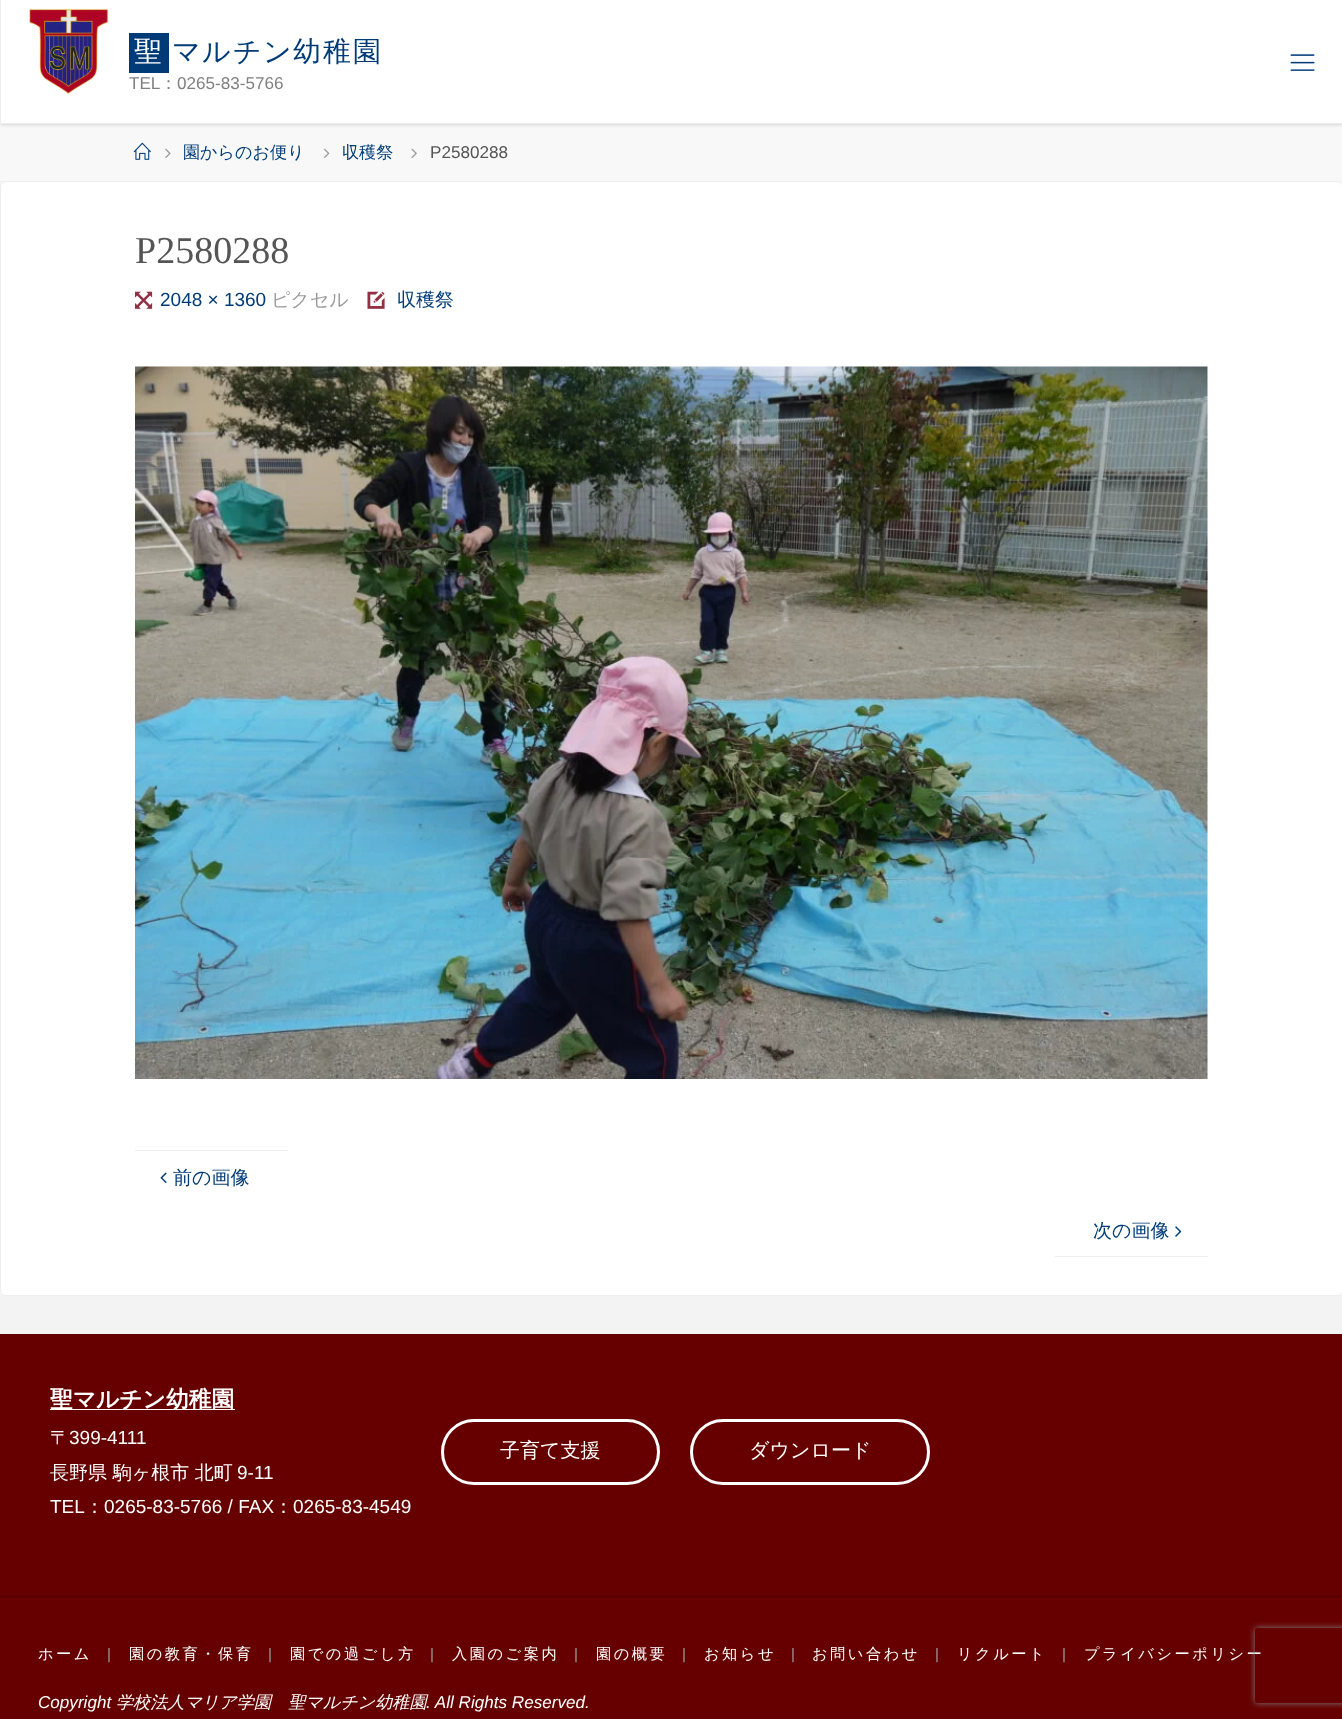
(async () => {
const canvas = document.querySelector("canvas")
canvas.width = 1342
canvas.height = 1719
const c = canvas.getContext("2d")
c.miterLimit = 4
c.fontKerning = "normal"
function T(s,x,y){c.fillText(s,x,y)}
function R(x,y,w,h){c.fillRect(x,y,w,h)}
function Q(x,y,w,h,r){c.beginPath();c.roundRect(x,y,w,h,r);c.fill()}
async function I(src,x,y,w,h){const img=new Image();img.src=src;await img.decode();c.drawImage(img,x,y,w,h)}
let path
c.fillStyle="#f3f3f3"
R(0,0,1342,1719)
c.fillStyle="#f8f8f8"
R(0,124,1342,57)
c.fillStyle="#00000033"
c.filter="blur(2px)"
c.beginPath()
c.rect(0,-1,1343,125)
c.fill()
c.filter="none"
c.fillStyle="#fff"
c.beginPath()
c.rect(.5,-.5,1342,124)
c.fill()
c.strokeStyle="#ededed"
c.stroke()
await I("1.png",29,9,80,86)
c.fillStyle="#003b78"
R(129,33,40,40)
c.font="500 28px WenQuanYi Zen Hei"
c.fillStyle="#fff"
T("聖",134,61)
c.fillStyle="#003b78"
T("マ",172,61)
T("ル",202,61)
T("チ",233,61)
T("ン",263,61)
T("幼",293,61)
T("稚",323,61)
T("園",353,61)
c.font="17.1px Liberation Sans"
c.fillStyle="#808080"
T("TEL",129,89)
c.font="500 17.1px WenQuanYi Zen Hei"
T("：",160,89)
c.font="17.1px Liberation Sans"
T("0265-83-5766",177,89)
await I("2.png",1290,54,25,17)
await I("3.png",133,142,18,18)
await I("4.png",165,148,6,10)
c.font="500 17.1px WenQuanYi Zen Hei"
c.fillStyle="#003b78"
T("園からのお便り",183,158)
await I("5.png",324,148,6,11)
T("収穫祭",342,158)
await I("6.png",411,148,6,10)
c.font="17.1px Liberation Sans"
c.fillStyle="#555"
T("P2580288",430,158)
c.fillStyle="#fff"
Q(0,181,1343,1115,6)
c.beginPath()
c.roundRect(.5,181.5,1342,1114,5.5)
c.strokeStyle="#00000012"
c.stroke()
c.font="38px Liberation Serif"
c.fillStyle="#555"
T("P2580288",135,263)
await I("7.png",135,291,18,18)
c.font="19px Liberation Sans"
c.fillStyle="#003b78"
T("2048 × 1360",160,306)
c.font="500 19px WenQuanYi Zen Hei"
c.fillStyle="#9a9a9a"
T("ピクセル",271,306)
await I("8.png",367,291,18,18)
c.fillStyle="#003b78"
T("収穫祭",397,306)
await I("9.png",135,366,1073,713)
c.fillStyle="#eee"
R(135,1150,153,1)
await I("10.png",160,1172,7,11)
c.fillStyle="#003b78"
T("前の画像",173,1184)
T("次の画像",1093,1237)
await I("11.png",1175,1226,7,11)
c.fillStyle="#eee"
R(1055,1256,153,1)
c.fillStyle="#600"
R(0,1335,1342,261)
c.fillStyle="#5f0000"
R(0,1334,1342,1)
c.fillStyle="#fff"
R(50,1409,185,1)
c.font="bold 22.75px WenQuanYi Zen Hei"
T("聖マルチン幼稚園",50,1407)
c.font="500 19px WenQuanYi Zen Hei"
T("〒",50,1444)
c.font="19px Liberation Sans"
T("399-4111",69,1444)
c.font="500 19px WenQuanYi Zen Hei"
T("長野県 駒ヶ根市 北町",50,1479)
c.font="19px Liberation Sans"
T("9-11",237,1479)
T("TEL",50,1513)
c.font="500 19px WenQuanYi Zen Hei"
T("：",85,1513)
c.font="19px Liberation Sans"
T("0265-83-5766 / FAX",104,1513)
c.font="500 19px WenQuanYi Zen Hei"
T("：",274,1513)
c.font="19px Liberation Sans"
T("0265-83-4549",293,1513)
c.beginPath()
c.roundRect(442.5,1420.5,216,63,31.5)
c.strokeStyle="#fff"
c.lineWidth=3
c.stroke()
c.font="500 20px WenQuanYi Zen Hei"
T("子育て支援",500,1457)
c.beginPath()
c.roundRect(691.5,1420.5,237,63,31.5)
c.stroke()
T("ダウンロード",749,1457)
c.fillStyle="#600"
R(0,1597,1342,122)
c.fillStyle="#520000"
R(0,1596,1342,1)
c.letterSpacing="2.5px"
c.font="500 15.25px WenQuanYi Zen Hei"
c.fillStyle="#fff"
T("ホーム",38,1659)
c.font="15.25px Liberation Sans"
c.fillStyle="#9a9a9a"
T("|",107,1659)
c.font="500 15.25px WenQuanYi Zen Hei"
c.fillStyle="#fff"
T("園の教育・保育",129,1659)
c.font="15.25px Liberation Sans"
c.fillStyle="#9a9a9a"
T("|",268,1659)
c.font="500 15.25px WenQuanYi Zen Hei"
c.fillStyle="#fff"
T("園での過ごし方",290,1659)
c.font="15.25px Liberation Sans"
c.fillStyle="#9a9a9a"
T("|",430,1659)
c.font="500 15.25px WenQuanYi Zen Hei"
c.fillStyle="#fff"
T("入園のご案内",452,1659)
c.font="15.25px Liberation Sans"
c.fillStyle="#9a9a9a"
T("|",574,1659)
c.font="500 15.25px WenQuanYi Zen Hei"
c.fillStyle="#fff"
T("園の概要",596,1659)
c.font="15.25px Liberation Sans"
c.fillStyle="#9a9a9a"
T("|",682,1659)
c.font="500 15.25px WenQuanYi Zen Hei"
c.fillStyle="#fff"
T("お知らせ",704,1659)
c.font="15.25px Liberation Sans"
c.fillStyle="#9a9a9a"
T("|",791,1659)
c.font="500 15.25px WenQuanYi Zen Hei"
c.fillStyle="#fff"
T("お問い合わせ",812,1659)
c.font="15.25px Liberation Sans"
c.fillStyle="#9a9a9a"
T("|",935,1659)
c.font="500 15.25px WenQuanYi Zen Hei"
c.fillStyle="#fff"
T("リクルート",957,1659)
c.font="15.25px Liberation Sans"
c.fillStyle="#9a9a9a"
T("|",1062,1659)
c.font="500 15.25px WenQuanYi Zen Hei"
c.fillStyle="#fff"
T("プライバシーポリシー",1084,1659)
c.letterSpacing="0px"
c.font="italic 17.1px Liberation Sans"
T("Copyright",38,1708)
c.font="italic 500 17.1px WenQuanYi Zen Hei"
T("学校法人マリア学園　聖マルチン幼稚園",116,1708)
c.font="italic 17.1px Liberation Sans"
T(". All Rights Reserved.",426,1708)
c.save()
path = new Path2D("M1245 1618h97v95h-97zm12.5 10h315c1.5 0 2.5 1 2.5 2.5v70c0 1.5-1 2.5-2.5 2.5h-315c-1.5 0-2.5-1-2.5-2.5v-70c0-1.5 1-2.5 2.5-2.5z")
c.clip(path,"evenodd")
c.fillStyle="#808080"
c.filter="blur(3px)"
c.beginPath()
c.roundRect(1255,1628,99,75,2.5)
c.fill()
c.filter="none"
c.restore()
})()
